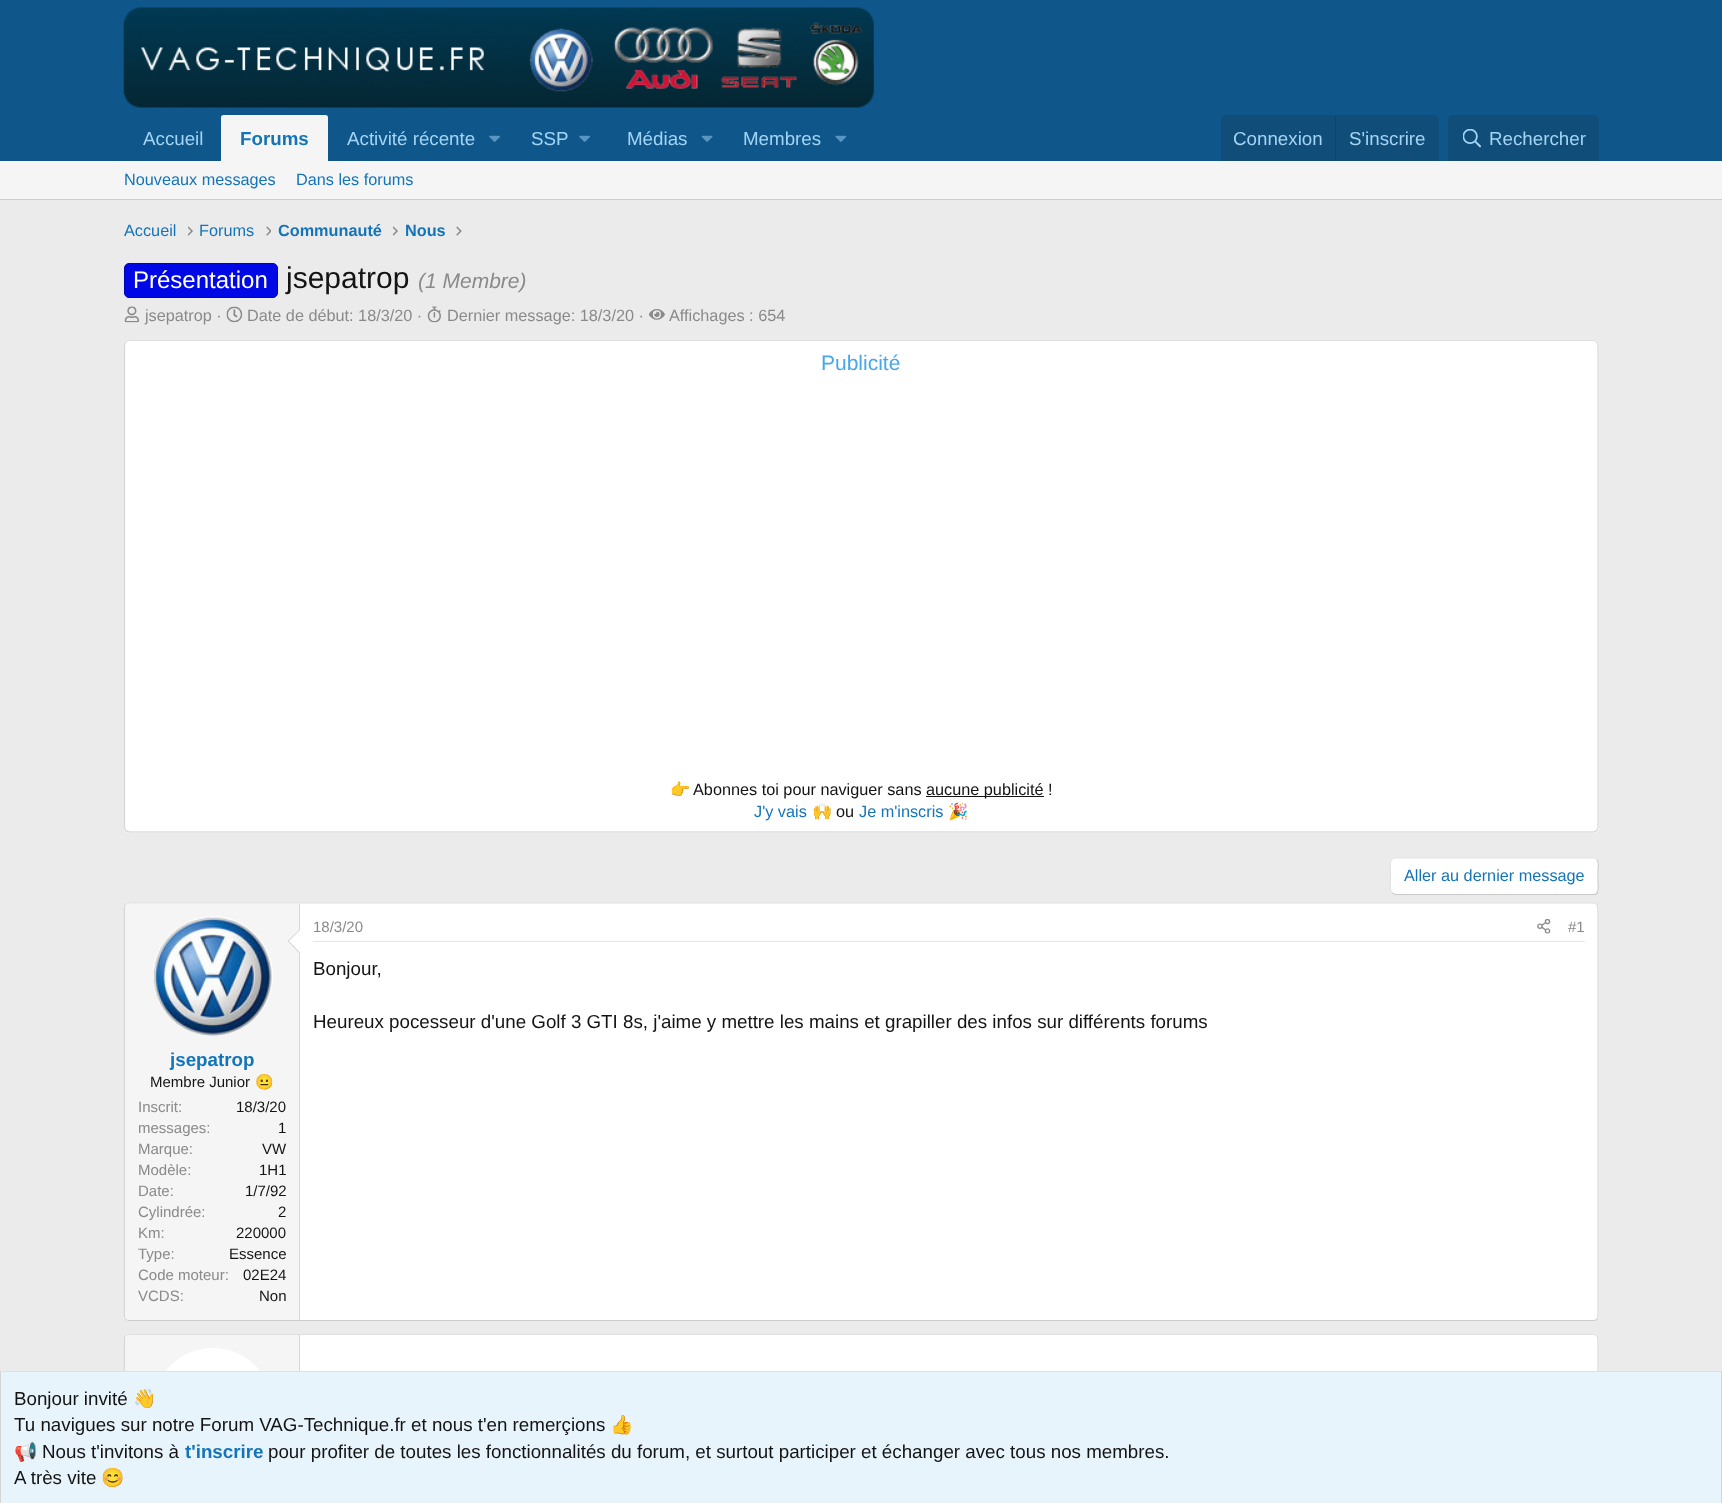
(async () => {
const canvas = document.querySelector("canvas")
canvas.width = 1722
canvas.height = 1503
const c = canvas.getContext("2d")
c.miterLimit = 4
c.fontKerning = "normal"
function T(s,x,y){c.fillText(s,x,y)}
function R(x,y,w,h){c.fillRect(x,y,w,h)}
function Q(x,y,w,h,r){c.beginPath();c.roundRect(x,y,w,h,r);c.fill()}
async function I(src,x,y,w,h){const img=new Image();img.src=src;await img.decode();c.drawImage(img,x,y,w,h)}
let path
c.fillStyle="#ebebeb"
R(0,0,1722,1503)
c.fillStyle="#0f578a"
R(0,0,1722,161)
await I("1.png",123,7,751,101)
c.font="18.75px Liberation Sans"
c.fillStyle="#a3d4f5"
T("Accueil",143,145)
c.fillStyle="#f5f5f5"
c.beginPath()
c.roundRect(221,115,107,46,[2.5,2.5,0,0])
c.fill()
c.font="bold 18.75px Liberation Sans"
c.fillStyle="#1474b8"
T("Forums",240,145)
c.font="18.75px Liberation Sans"
c.fillStyle="#a3d4f5"
T("Activité récente",347,145)
await I("2.png",489,135,11,7)
T("SSP",531,145)
await I("2.png",579,135,11,7)
T("Médias",627,145)
await I("3.png",701,135,12,7)
T("Membres",743,145)
await I("4.png",835,135,12,7)
c.fillStyle="#104d78"
c.beginPath()
c.roundRect(1221,115,218,46,[5,5,0,0])
c.fill()
c.fillStyle="#a3d4f5"
T("Connexion",1233,145)
c.fillStyle="#114469"
R(1335,115,1,46)
c.fillStyle="#a3d4f5"
T("S'inscrire",1349,145)
c.fillStyle="#104d78"
c.beginPath()
c.roundRect(1448,115,151,46,[5,5,0,0])
c.fill()
await I("5.png",1463,129,18,19)
c.fillStyle="#a3d4f5"
T("Rechercher",1489,145)
c.fillStyle="#f5f5f5"
R(0,161,1722,38)
c.fillStyle="#ccc"
R(0,199,1722,1)
c.font="16.25px Liberation Sans"
c.fillStyle="#1474b8"
T("Nouveaux messages",124,185)
T("Dans les forums",296,185)
T("Accueil",124,236)
await I("6.png",188,226,5,10)
T("Forums",199,236)
await I("7.png",266,226,5,10)
c.font="bold 16.25px Liberation Sans"
T("Communauté",278,236)
await I("6.png",393,226,5,10)
T("Nous",405,236)
await I("8.png",456,226,6,10)
c.fillStyle="#0008e6"
c.beginPath()
c.roundRect(124.5,263.5,153,34,4.5)
c.fill()
c.strokeStyle="#0006b3"
c.stroke()
c.font="24px Liberation Sans"
c.fillStyle="#fff"
T("Présentation",133,288)
c.font="30px Liberation Sans"
c.fillStyle="#141414"
T("jsepatrop",286,288)
c.font="italic 21px Liberation Sans"
c.fillStyle="#8a8a8a"
T("(1 Membre)",418,288)
await I("9.png",124,306,15,17)
c.font="16.25px Liberation Sans"
T("jsepatrop ·",145,321)
await I("10.png",226,306,17,17)
T("Date de début: 18/3/20 ·",247,321)
await I("11.png",427,306,14,17)
T("Dernier message: 18/3/20 ·",447,321)
await I("12.png",649,309,16,11)
T("Affichages : 654",669,321)
c.fillStyle="#fff"
Q(124,340,1475,493,5)
path = new Path2D("M125.5 342l3.5-1.5h1465l3 1.5")
c.strokeStyle="#e0e0e0"
c.lineWidth=1.2
c.stroke(path)
path = new Path2D("M1597 342l1 3v482.5l-1 3")
c.strokeStyle="#d6d6d6"
c.stroke(path)
path = new Path2D("M1597 830.5l-3 1.5h-1465l-3.5-1.5")
c.strokeStyle="#ccc"
c.stroke(path)
path = new Path2D("M125.5 830.5l-1-3v-482.5l1-3")
c.strokeStyle="#d6d6d6"
c.stroke(path)
c.font="21px Liberation Sans"
c.fillStyle="#47a7eb"
T("Publicité",821,370)
c.font="16.25px Noto Color Emoji"
c.fillStyle="#141414"
T("👉",670,795)
c.font="16.25px Liberation Sans"
T("Abonnes toi pour naviguer sans",693,795)
R(926,796,118,1)
T("aucune publicité !",926,795)
c.fillStyle="#1474b8"
T("J'y vais",754,817)
c.font="16.25px Noto Color Emoji"
T("🙌",812,817)
c.font="16.25px Liberation Sans"
c.fillStyle="#141414"
T("ou",836,817)
c.fillStyle="#1474b8"
T("Je m'inscris",859,817)
c.font="16.25px Noto Color Emoji"
T("🎉",948,817)
c.fillStyle="#fff"
Q(1390,858,209,37,5)
path = new Path2D("M1597 859.5c2.5 2.5 1 9 1 12v9.5c0 3 2 13.5-4 13.5h-199l-3-1.5")
c.strokeStyle="#c9c9c9"
c.stroke(path)
path = new Path2D("M1392 893c-3-2.5-1.5-9-1.5-12v-9.5c0-3-2-13.5 4.5-13.5h199l3 1.5")
c.strokeStyle="#e3e3e3"
c.stroke(path)
c.font="16.25px Liberation Sans"
c.fillStyle="#1474b8"
T("Aller au dernier message",1404,881)
c.fillStyle="#fff"
Q(124,903,1475,418,5)
path = new Path2D("M125.5 904.5l3.5-1.5h1465l3 1.5")
c.strokeStyle="#e0e0e0"
c.stroke(path)
path = new Path2D("M1597 904.5l1 3v408.5l-1 3.5")
c.strokeStyle="#d6d6d6"
c.stroke(path)
path = new Path2D("M1597 1319.5l-3 1h-1465l-3.5-1")
c.strokeStyle="#ccc"
c.stroke(path)
path = new Path2D("M125.5 1319.5l-1-3.5v-408.5l1-3")
c.strokeStyle="#d6d6d6"
c.stroke(path)
c.fillStyle="#e6e6e6"
R(313,941,1272,1)
c.font="15px Liberation Sans"
c.fillStyle="#8a8a8a"
T("18/3/20",313,932)
await I("13.png",1537,919,14,15)
T("#1",1568,932)
c.font="18.75px Liberation Sans"
c.fillStyle="#141414"
T("Bonjour,",313,975)
T("Heureux pocesseur d'une Golf 3 GTI 8s, j'aime y mettre les mains et grapiller des infos sur différents forums",313,1028)
c.fillStyle="#f5f5f5"
c.beginPath()
c.roundRect(125,904,175,416,[4,0,0,4])
c.fill()
c.fillStyle="#d6d6d6"
R(299,904,1,416)
c.fillStyle="#fff"
c.beginPath()
c.arc(213,976,60,0,7)
c.fill()
await I("14.png",153,916,120,120)
c.fillStyle="#d6d6d6"
path = new Path2D("M300 929v25l-12.5-13z")
c.fill(path)
c.fillStyle="#fff"
path = new Path2D("M300 930v22.5l-11-11.5z")
c.fill(path)
c.font="bold 18.75px Liberation Sans"
c.fillStyle="#1474b8"
T("jsepatrop",170,1066)
c.font="15px Liberation Sans"
c.fillStyle="#141414"
T("Membre Junior",150,1087)
c.font="15px Noto Color Emoji"
T("😐",255,1087)
c.font="15px Liberation Sans"
c.fillStyle="#8a8a8a"
T("Inscrit:",138,1112)
c.fillStyle="#141414"
T("18/3/20",236,1112)
c.fillStyle="#8a8a8a"
T("messages:",138,1133)
c.fillStyle="#141414"
T("1",278,1133)
c.fillStyle="#8a8a8a"
T("Marque:",138,1154)
c.fillStyle="#141414"
T("VW",262,1154)
c.fillStyle="#8a8a8a"
T("Modèle:",138,1175)
c.fillStyle="#141414"
T("1H1",259,1175)
c.fillStyle="#8a8a8a"
T("Date:",138,1196)
c.fillStyle="#141414"
T("1/7/92",245,1196)
c.fillStyle="#8a8a8a"
T("Cylindrée:",138,1217)
c.fillStyle="#141414"
T("2",278,1217)
c.fillStyle="#8a8a8a"
T("Km:",138,1238)
c.fillStyle="#141414"
T("220000",236,1238)
c.fillStyle="#8a8a8a"
T("Type:",138,1259)
c.fillStyle="#141414"
T("Essence",229,1259)
c.fillStyle="#8a8a8a"
T("Code moteur:",138,1280)
c.fillStyle="#141414"
T("02E24",243,1280)
c.fillStyle="#8a8a8a"
T("VCDS:",138,1301)
c.fillStyle="#141414"
T("Non",259,1301)
c.fillStyle="#fff"
Q(124,1334,1475,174,5)
path = new Path2D("M125.5 1335.5l3.5-1h1465l3 1")
c.strokeStyle="#e0e0e0"
c.stroke(path)
path = new Path2D("M1597 1335.5c.5 1 1 2 1 3.5v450c0 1-.5 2-1 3")
c.strokeStyle="#d6d6d6"
c.stroke(path)
path = new Path2D("M125.5 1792c-.5-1-1-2-1-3v-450c0-1.5 .5-2.5 1-3.5")
c.stroke(path)
c.fillStyle="#f5f5f5"
path = new Path2D("M129 1335h171v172h-171c-2 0-4-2-4-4v-164c0-2 2-4 4-4z")
c.fill(path)
c.fillStyle="#d6d6d6"
R(299,1335,1,36)
c.fillStyle="#fff"
c.beginPath()
c.arc(213,1408,60,0,7)
c.fill()
c.fillStyle="#e8f4fc"
R(1,1372,1720,131)
c.fillStyle="#e0e0e0"
R(0,1371,1722,1)
c.fillStyle="#d6d6d6"
R(1721,1371,1,132)
R(0,1371,1,132)
c.font="18.75px Liberation Sans"
c.fillStyle="#141414"
T("Bonjour invité",14,1405)
c.font="18.75px Noto Color Emoji"
T("👋",133,1405)
c.font="18.75px Liberation Sans"
T("Tu navigues sur notre Forum VAG-Technique.fr et nous t'en remerçions",14,1431)
c.font="18.75px Noto Color Emoji"
T("👍",610,1431)
T("📢",14,1458)
c.font="18.75px Liberation Sans"
T("Nous t'invitons à",42,1458)
c.font="bold 18.75px Liberation Sans"
c.fillStyle="#1474b8"
T("t'inscrire",185,1458)
c.font="18.75px Liberation Sans"
c.fillStyle="#141414"
T("pour profiter de toutes les fonctionnalités du forum, et surtout participer et échanger avec tous nos membres.",268,1458)
T("A très vite",14,1484)
c.font="18.75px Noto Color Emoji"
T("😊",101,1484)
})()
